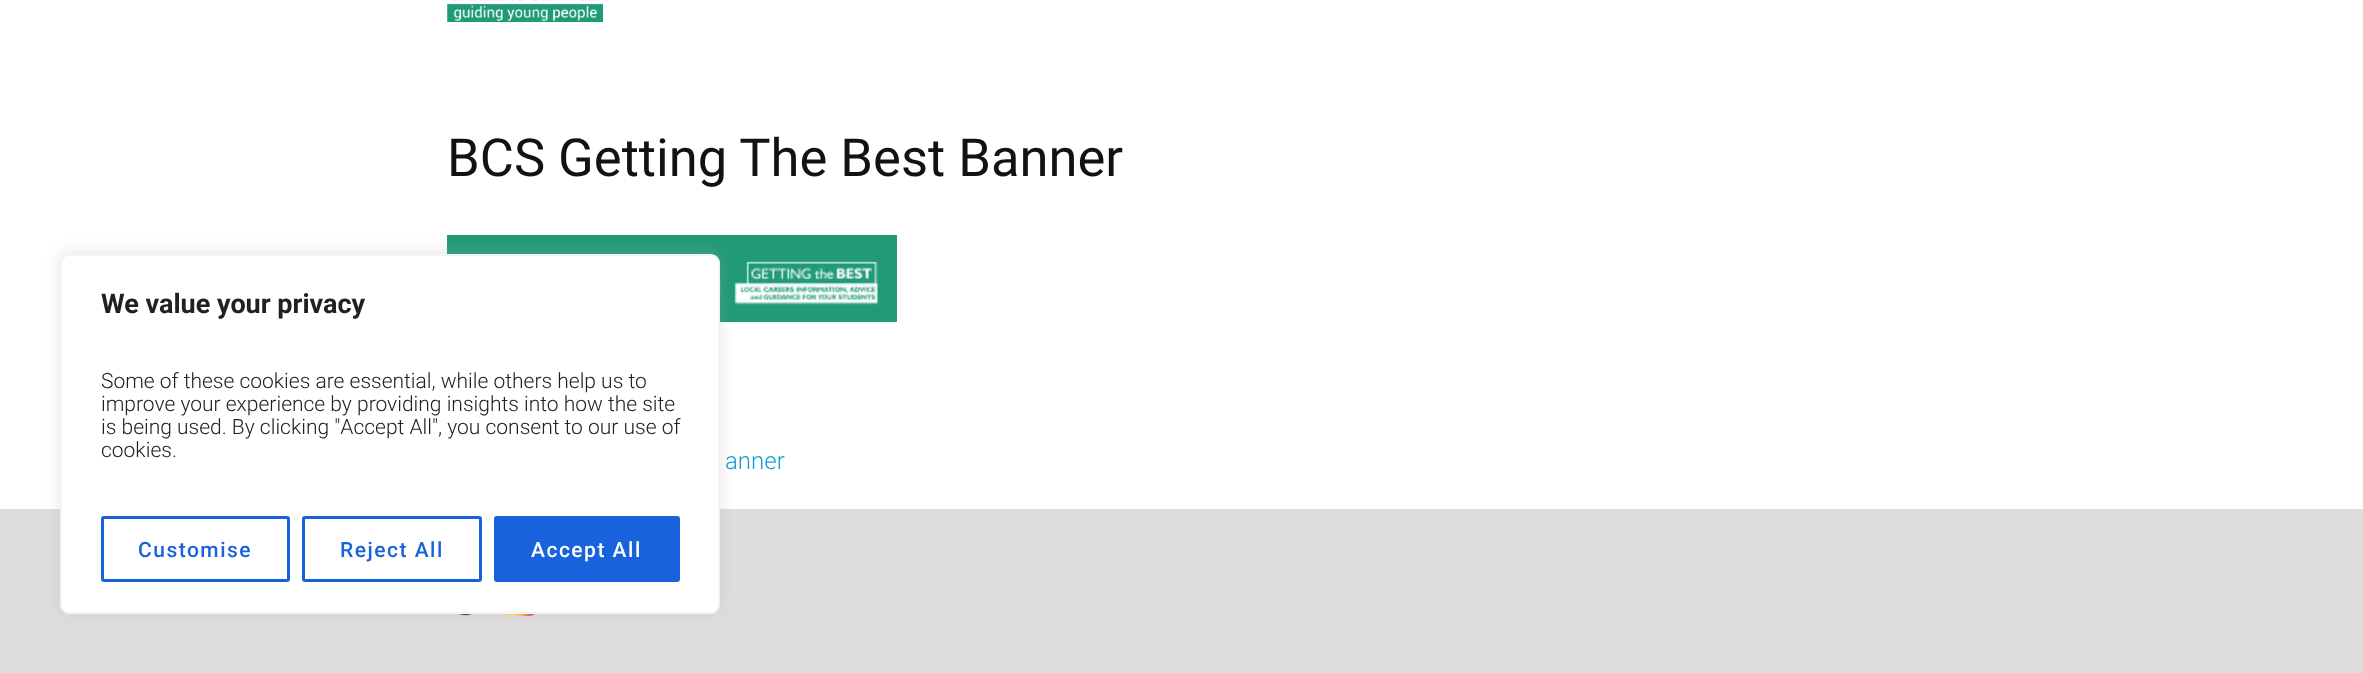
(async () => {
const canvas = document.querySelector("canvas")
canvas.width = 2363
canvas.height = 673
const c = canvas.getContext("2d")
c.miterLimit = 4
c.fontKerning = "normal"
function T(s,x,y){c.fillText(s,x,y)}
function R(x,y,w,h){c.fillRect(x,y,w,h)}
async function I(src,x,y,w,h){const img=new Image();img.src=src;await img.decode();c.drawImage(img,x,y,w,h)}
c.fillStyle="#fff"
R(0,0,2363,673)
await I("2.png",447,235,450,87)
c.fillStyle="#ddd"
R(0,509,2363,164)
c.fillStyle="#e0e0e0"
R(564,614,2,15)
await I("3.png",458,614,14,2)
await I("4.png",503,614,32,2)
c.fillStyle="#acabab4d"
c.filter="blur(7.5px)"
c.beginPath()
c.roundRect(60,252,660,360,9)
c.fill()
c.filter="none"
c.fillStyle="#fff"
c.beginPath()
c.roundRect(61,255,658,358,8)
c.fill()
c.strokeStyle="#f4f4f4"
c.lineWidth=2
c.stroke()
c.font="bold 27px Roboto"
c.fillStyle="#212121"
T("We value your privacy",101,313)
c.font="300 21px Roboto"
T("Some of these cookies are essential, while others help us to",101,388)
T("improve your experience by providing insights into how the site",101,411)
T("is being used. By clicking \"Accept All\", you consent to our use of",101,434)
T("cookies.",101,457)
c.beginPath()
c.roundRect(102.5,517.5,186,63,1.5)
c.strokeStyle="#1863dc"
c.lineWidth=3
c.stroke()
c.letterSpacing="1.5px"
c.font="500 21px Roboto"
c.fillStyle="#1863dc"
T("Customise",138,557)
c.beginPath()
c.roundRect(303.5,517.5,177,63,1.5)
c.stroke()
T("Reject All",340,557)
c.beginPath()
c.roundRect(495.5,517.5,183,63,1.5)
c.fill()
c.stroke()
c.fillStyle="#fff"
T("Accept All",531,557)
await I("1.png",447,0,156,22)
c.letterSpacing="0px"
c.font="52.5px Roboto"
c.fillStyle="#121212"
T("BCS Getting The Best Banner",447,176)
c.font="300 24px Roboto"
c.fillStyle="#199cd8"
T("anner",725,469)
})()
